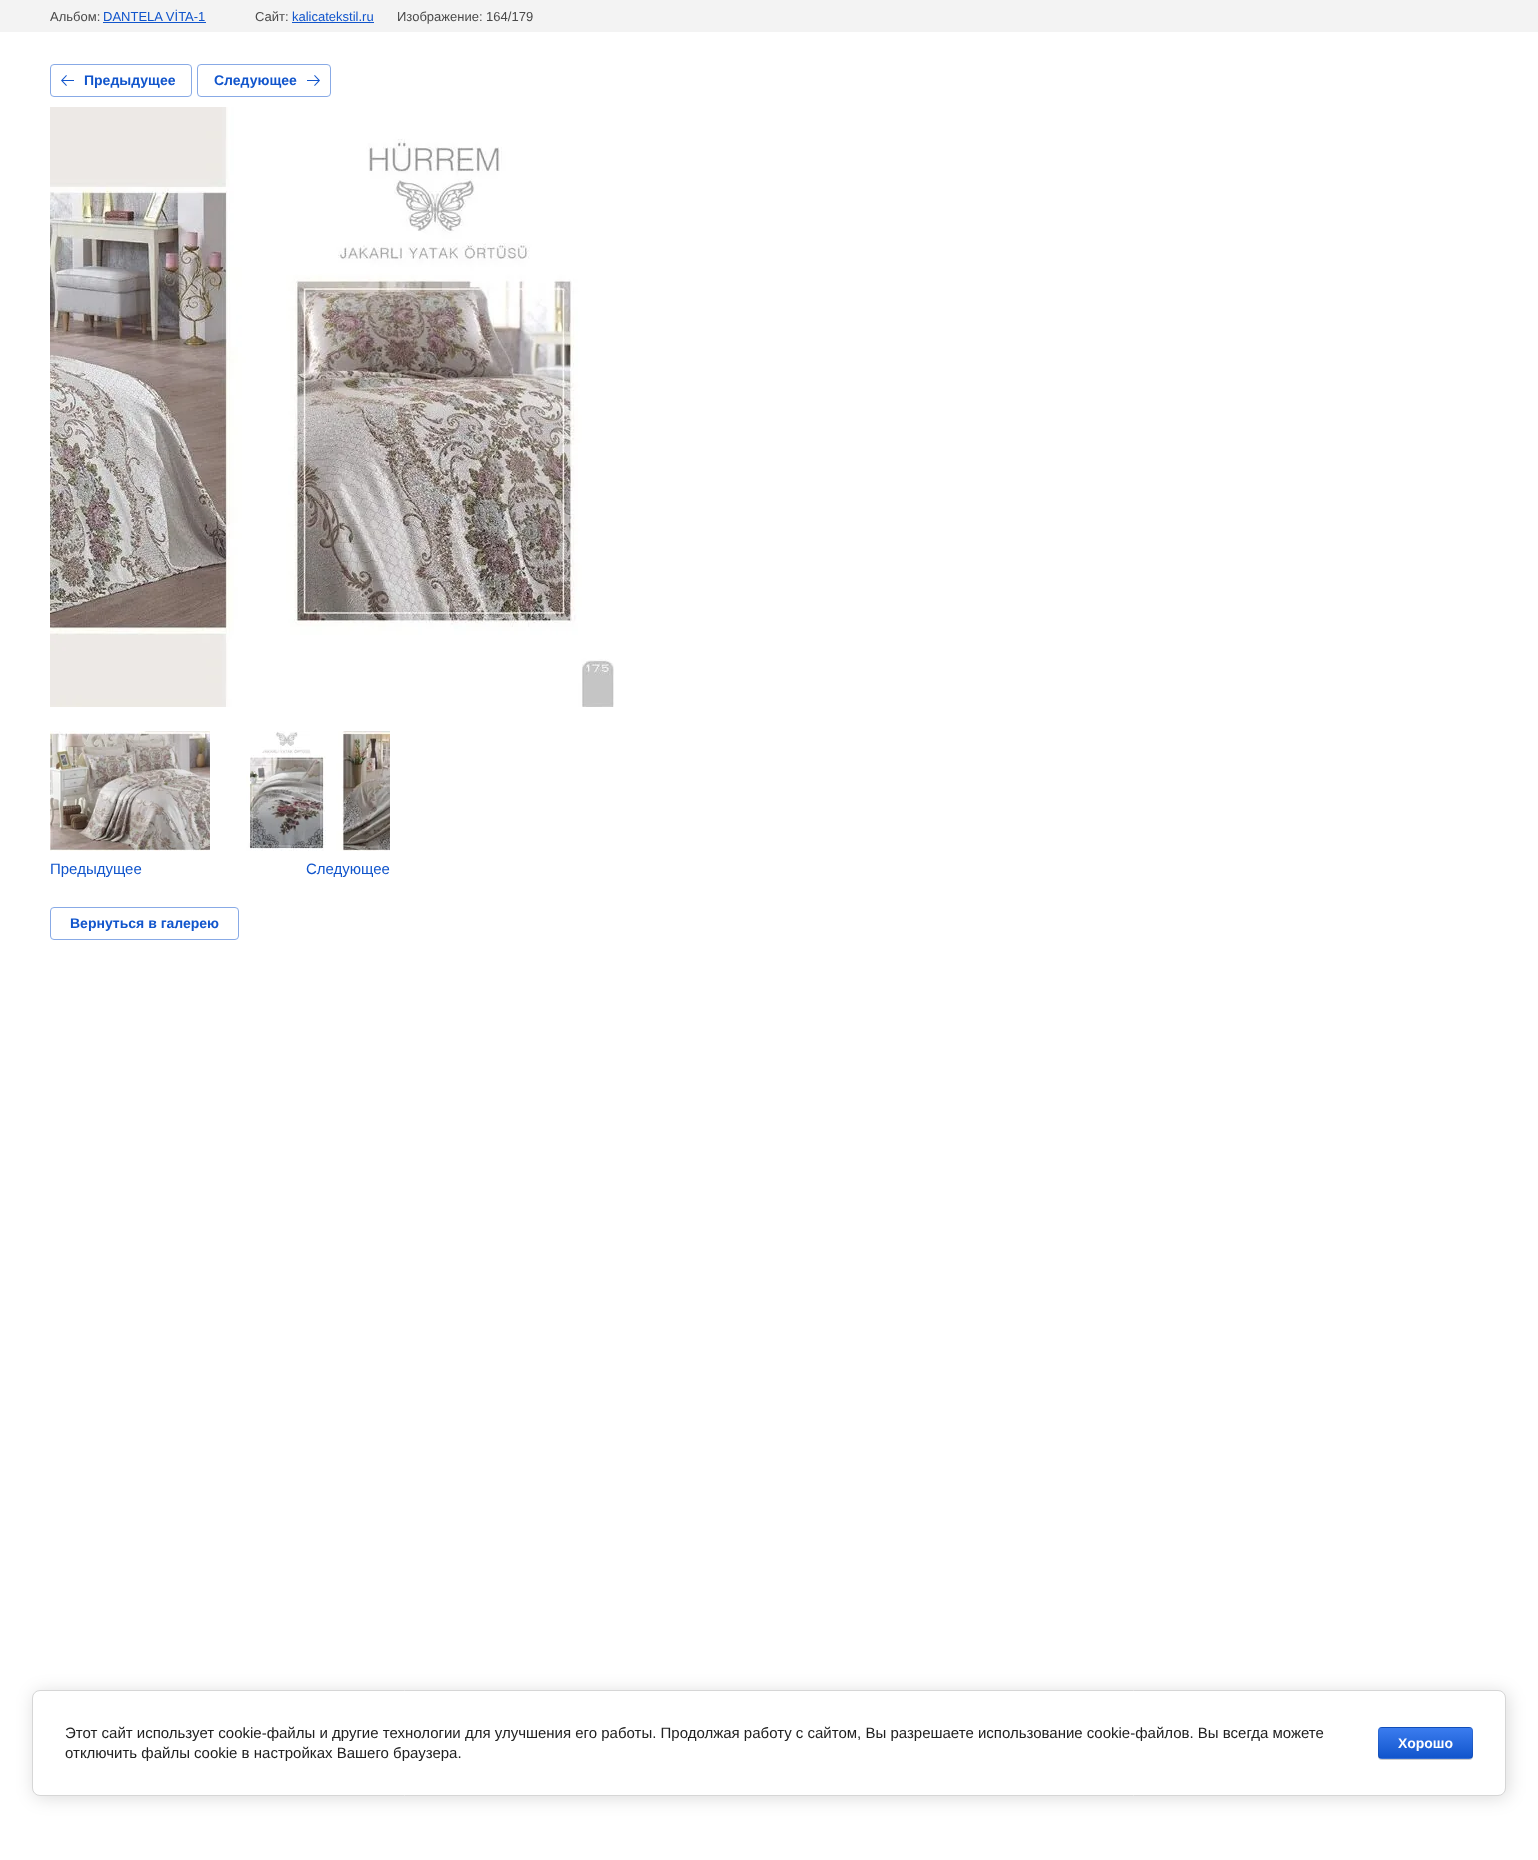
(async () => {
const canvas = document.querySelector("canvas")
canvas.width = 1538
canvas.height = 1860
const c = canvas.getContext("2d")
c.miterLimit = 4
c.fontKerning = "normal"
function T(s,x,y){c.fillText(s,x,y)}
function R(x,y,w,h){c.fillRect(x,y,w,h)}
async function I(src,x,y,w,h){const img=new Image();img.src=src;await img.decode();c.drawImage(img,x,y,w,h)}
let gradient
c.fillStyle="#fff"
R(0,0,1538,1860)
c.fillStyle="#f3f3f3"
R(0,0,1538,32)
c.font="13px Liberation Sans"
c.fillStyle="#484848"
T("Альбом:",50,21)
c.fillStyle="#15c"
T("DANTELA VİTA-1",103,21)
R(103,22,103,1)
c.fillStyle="#484848"
T("Сайт:",255,21)
c.fillStyle="#15c"
T("kalicatekstil.ru",292,21)
R(292,22,82,1)
c.fillStyle="#484848"
T("Изображение: 164/179",397,21)
c.beginPath()
c.roundRect(50.5,64.5,141,32,3.5)
c.strokeStyle="#88aae6"
c.stroke()
await I("1.png",61,75,13,11)
c.font="bold 14px Liberation Sans"
c.fillStyle="#15c"
T("Предыдущее",84,85)
c.beginPath()
c.roundRect(197.5,64.5,133,32,3.5)
c.stroke()
T("Следующее",214,85)
await I("2.png",307,75,13,11)
await I("3.png",50,107,564,600)
await I("4.png",50,731,160,120)
c.font="15px Liberation Sans"
T("Предыдущее",50,874)
await I("5.png",246,731,144,120)
T("Следующее",306,874)
c.beginPath()
c.roundRect(50.5,907.5,188,32,3.5)
c.stroke()
c.font="bold 14px Liberation Sans"
T("Вернуться в галерею",70,928)
c.fillStyle="#00000024"
c.filter="blur(9px)"
c.beginPath()
c.roundRect(34,1692,1474,106,8)
c.fill()
c.filter="none"
c.fillStyle="#fff"
c.beginPath()
c.roundRect(32.5,1690.5,1473,105,7.5)
c.fill()
c.strokeStyle="#d6d6d6"
c.stroke()
c.font="15px Liberation Sans"
c.fillStyle="#212121"
T("Этот сайт использует cookie-файлы и другие технологии для улучшения его работы. Продолжая работу с сайтом, Вы разрешаете использование cookie-файлов. Вы всегда можете",65,1738)
T("отключить файлы cookie в настройках Вашего браузера.",65,1758)
c.fillStyle="#00000033"
c.filter="blur(0.5px)"
c.beginPath()
c.roundRect(1378,1728,95,32,4)
c.fill()
c.filter="none"
c.save()
c.beginPath()
c.roundRect(1378,1727,95,32,4)
c.clip()
gradient = c.createLinearGradient(1426,1698,1426,1728)
gradient.addColorStop(0,"#3b7cef")
gradient.addColorStop(1,"#15c")
c.fillStyle = gradient
R(1378,1727,95,1)
gradient = c.createLinearGradient(1426,1728,1426,1758)
gradient.addColorStop(0,"#3b7cef")
gradient.addColorStop(1,"#15c")
c.fillStyle = gradient
R(1378,1728,95,30)
gradient = c.createLinearGradient(1426,1758,1426,1788)
gradient.addColorStop(0,"#3b7cef")
gradient.addColorStop(1,"#15c")
c.fillStyle = gradient
R(1378,1758,95,1)
c.restore()
c.beginPath()
c.roundRect(1378.5,1727.5,94,31,3.5)
c.strokeStyle="#0000001a"
c.stroke()
c.font="bold 14px Liberation Sans"
c.fillStyle="#fff"
T("Хорошо",1398,1748)
})()
